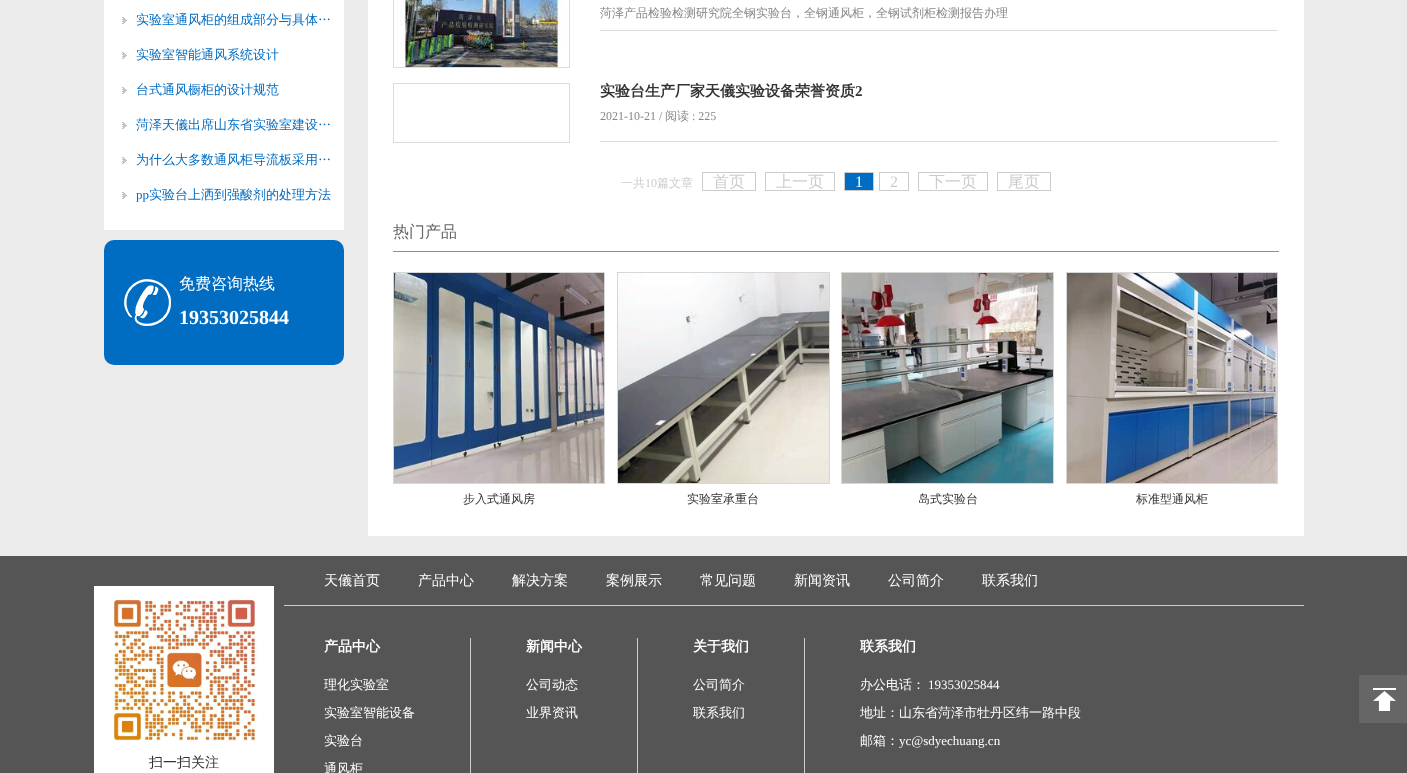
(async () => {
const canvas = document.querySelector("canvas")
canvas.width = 1407
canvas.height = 773
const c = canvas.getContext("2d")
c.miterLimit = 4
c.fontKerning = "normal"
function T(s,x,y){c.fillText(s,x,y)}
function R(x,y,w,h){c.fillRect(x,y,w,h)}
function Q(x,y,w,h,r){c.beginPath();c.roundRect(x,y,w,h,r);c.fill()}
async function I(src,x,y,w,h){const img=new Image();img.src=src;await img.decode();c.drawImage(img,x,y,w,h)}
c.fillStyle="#ebebeb"
R(0,0,1407,773)
c.fillStyle="#fff"
R(104,0,240,230)
await I("1.png",122,17,5,7)
c.font="500 13px WenQuanYi Zen Hei"
c.fillStyle="#006cc2"
T("实验室通风柜的组成部分与具体…",136,24)
await I("1.png",122,52,5,7)
T("实验室智能通风系统设计",136,59)
await I("1.png",122,87,5,7)
T("台式通风橱柜的设计规范",136,94)
await I("1.png",122,122,5,7)
T("菏泽天儀出席山东省实验室建设…",136,129)
await I("1.png",122,157,5,7)
T("为什么大多数通风柜导流板采用…",136,164)
await I("1.png",122,192,5,7)
c.font="13px Liberation Serif"
T("pp",136,199)
c.font="500 13px WenQuanYi Zen Hei"
T("实验台上洒到强酸剂的处理方法",149,199)
Q(104,240,240,125,10)
await I("2.png",124,279,47,47)
c.font="500 16px WenQuanYi Zen Hei"
c.fillStyle="#fff"
T("免费咨询热线",179,289)
c.font="bold 20px Liberation Serif"
T("19353025844",179,324)
R(368,0,936,536)
c.strokeStyle="#dcdcdc"
c.strokeRect(393.5,-.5,176,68)
await I("3.png",394,0,172,67)
c.fillStyle="#dcdcdc"
R(600,30,678,1)
c.font="500 12px WenQuanYi Zen Hei"
c.fillStyle="#868686"
T("菏泽产品检验检测研究院全钢实验台，全钢通风柜，全钢试剂柜检测报告办理",600,17)
c.strokeRect(393.5,83.5,176,59)
c.font="bold 15px WenQuanYi Zen Hei"
c.fillStyle="#333"
T("实验台生产厂家天儀实验设备荣誉资质",600,96)
c.font="bold 15px Liberation Serif"
T("2",855,96)
c.font="12px Liberation Serif"
c.fillStyle="#868686"
T("2021-10-21 /",600,120)
c.font="500 12px WenQuanYi Zen Hei"
T("阅读",665,120)
c.font="12px Liberation Serif"
T(": 225",692,120)
c.fillStyle="#dcdcdc"
R(600,141,678,1)
c.font="500 12px WenQuanYi Zen Hei"
c.fillStyle="#ccc"
T("一共",621,187)
c.font="12px Liberation Serif"
T("10",645,187)
c.font="500 12px WenQuanYi Zen Hei"
T("篇文章",657,187)
c.strokeStyle="#ccc"
c.strokeRect(702.5,172.5,53,18)
c.font="500 16px WenQuanYi Zen Hei"
T("首页",713,187)
c.strokeRect(765.5,172.5,69,18)
T("上一页",776,187)
c.fillStyle="#006cc2"
c.beginPath()
c.rect(844.5,172.5,29,18)
c.fill()
c.stroke()
c.font="16px Liberation Serif"
c.fillStyle="#fff"
T("1",855,187)
c.strokeRect(879.5,172.5,29,18)
c.fillStyle="#ccc"
T("2",890,187)
c.strokeRect(918.5,172.5,69,18)
c.font="500 16px WenQuanYi Zen Hei"
T("下一页",929,187)
c.strokeRect(997.5,172.5,53,18)
T("尾页",1008,187)
c.fillStyle="#8c8c8c"
R(393,251,886,1)
c.fillStyle="#666"
T("热门产品",393,237)
c.strokeStyle="#d7d7d7"
c.strokeRect(393.5,272.5,211,211)
await I("4.png",394,273,210,210)
c.font="500 12px WenQuanYi Zen Hei"
c.fillStyle="#333"
T("步入式通风房",463,503)
c.strokeRect(617.5,272.5,212,211)
await I("5.png",618,273,211,210)
T("实验室承重台",687,503)
c.strokeRect(841.5,272.5,212,211)
await I("6.png",842,273,211,210)
T("岛式实验台",918,503)
c.strokeRect(1066.5,272.5,211,211)
await I("7.png",1067,273,210,210)
T("标准型通风柜",1136,503)
c.fillStyle="#555"
R(0,556,1407,217)
c.fillStyle="#cdcdcd"
R(284,605,1020,1)
c.font="500 14px WenQuanYi Zen Hei"
c.fillStyle="#fff"
T("天儀首页",324,585)
T("产品中心",418,585)
T("解决方案",512,585)
T("案例展示",606,585)
T("常见问题",700,585)
T("新闻资讯",794,585)
T("公司简介",888,585)
T("联系我们",982,585)
R(94,586,180,187)
await I("8.png",113,599,144,143)
c.fillStyle="#333"
T("扫一扫关注",149,767)
c.font="bold 14px WenQuanYi Zen Hei"
c.fillStyle="#fff"
T("产品中心",324,651)
c.save()
c.beginPath()
c.rect(324,638,146,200)
c.clip()
c.font="500 13px WenQuanYi Zen Hei"
T("理化实验室",324,689)
c.restore()
c.font="500 13px WenQuanYi Zen Hei"
T("实验室智能设备",324,717)
T("实验台",324,745)
T("通风柜",324,773)
c.fillStyle="#cdcdcd"
R(470,638,1,135)
c.font="bold 14px WenQuanYi Zen Hei"
c.fillStyle="#fff"
T("新闻中心",526,651)
c.font="500 13px WenQuanYi Zen Hei"
T("公司动态",526,689)
T("业界资讯",526,717)
c.fillStyle="#cdcdcd"
R(637,638,1,135)
c.font="bold 14px WenQuanYi Zen Hei"
c.fillStyle="#fff"
T("关于我们",693,651)
c.font="500 13px WenQuanYi Zen Hei"
T("公司简介",693,689)
T("联系我们",693,717)
c.fillStyle="#cdcdcd"
R(804,638,1,135)
c.font="bold 14px WenQuanYi Zen Hei"
c.fillStyle="#fff"
T("联系我们",860,651)
c.font="500 13px WenQuanYi Zen Hei"
T("办公电话：",860,689)
c.font="13px Liberation Serif"
T("19353025844",928,689)
c.font="500 13px WenQuanYi Zen Hei"
T("地址：山东省菏泽市牡丹区纬一路中段",860,717)
T("邮箱：",860,745)
c.font="13px Liberation Serif"
T("yc@sdyechuang.cn",899,745)
c.fillStyle="#666"
R(1359,675,48,48)
await I("9.png",1373,688,23,23)
})()
